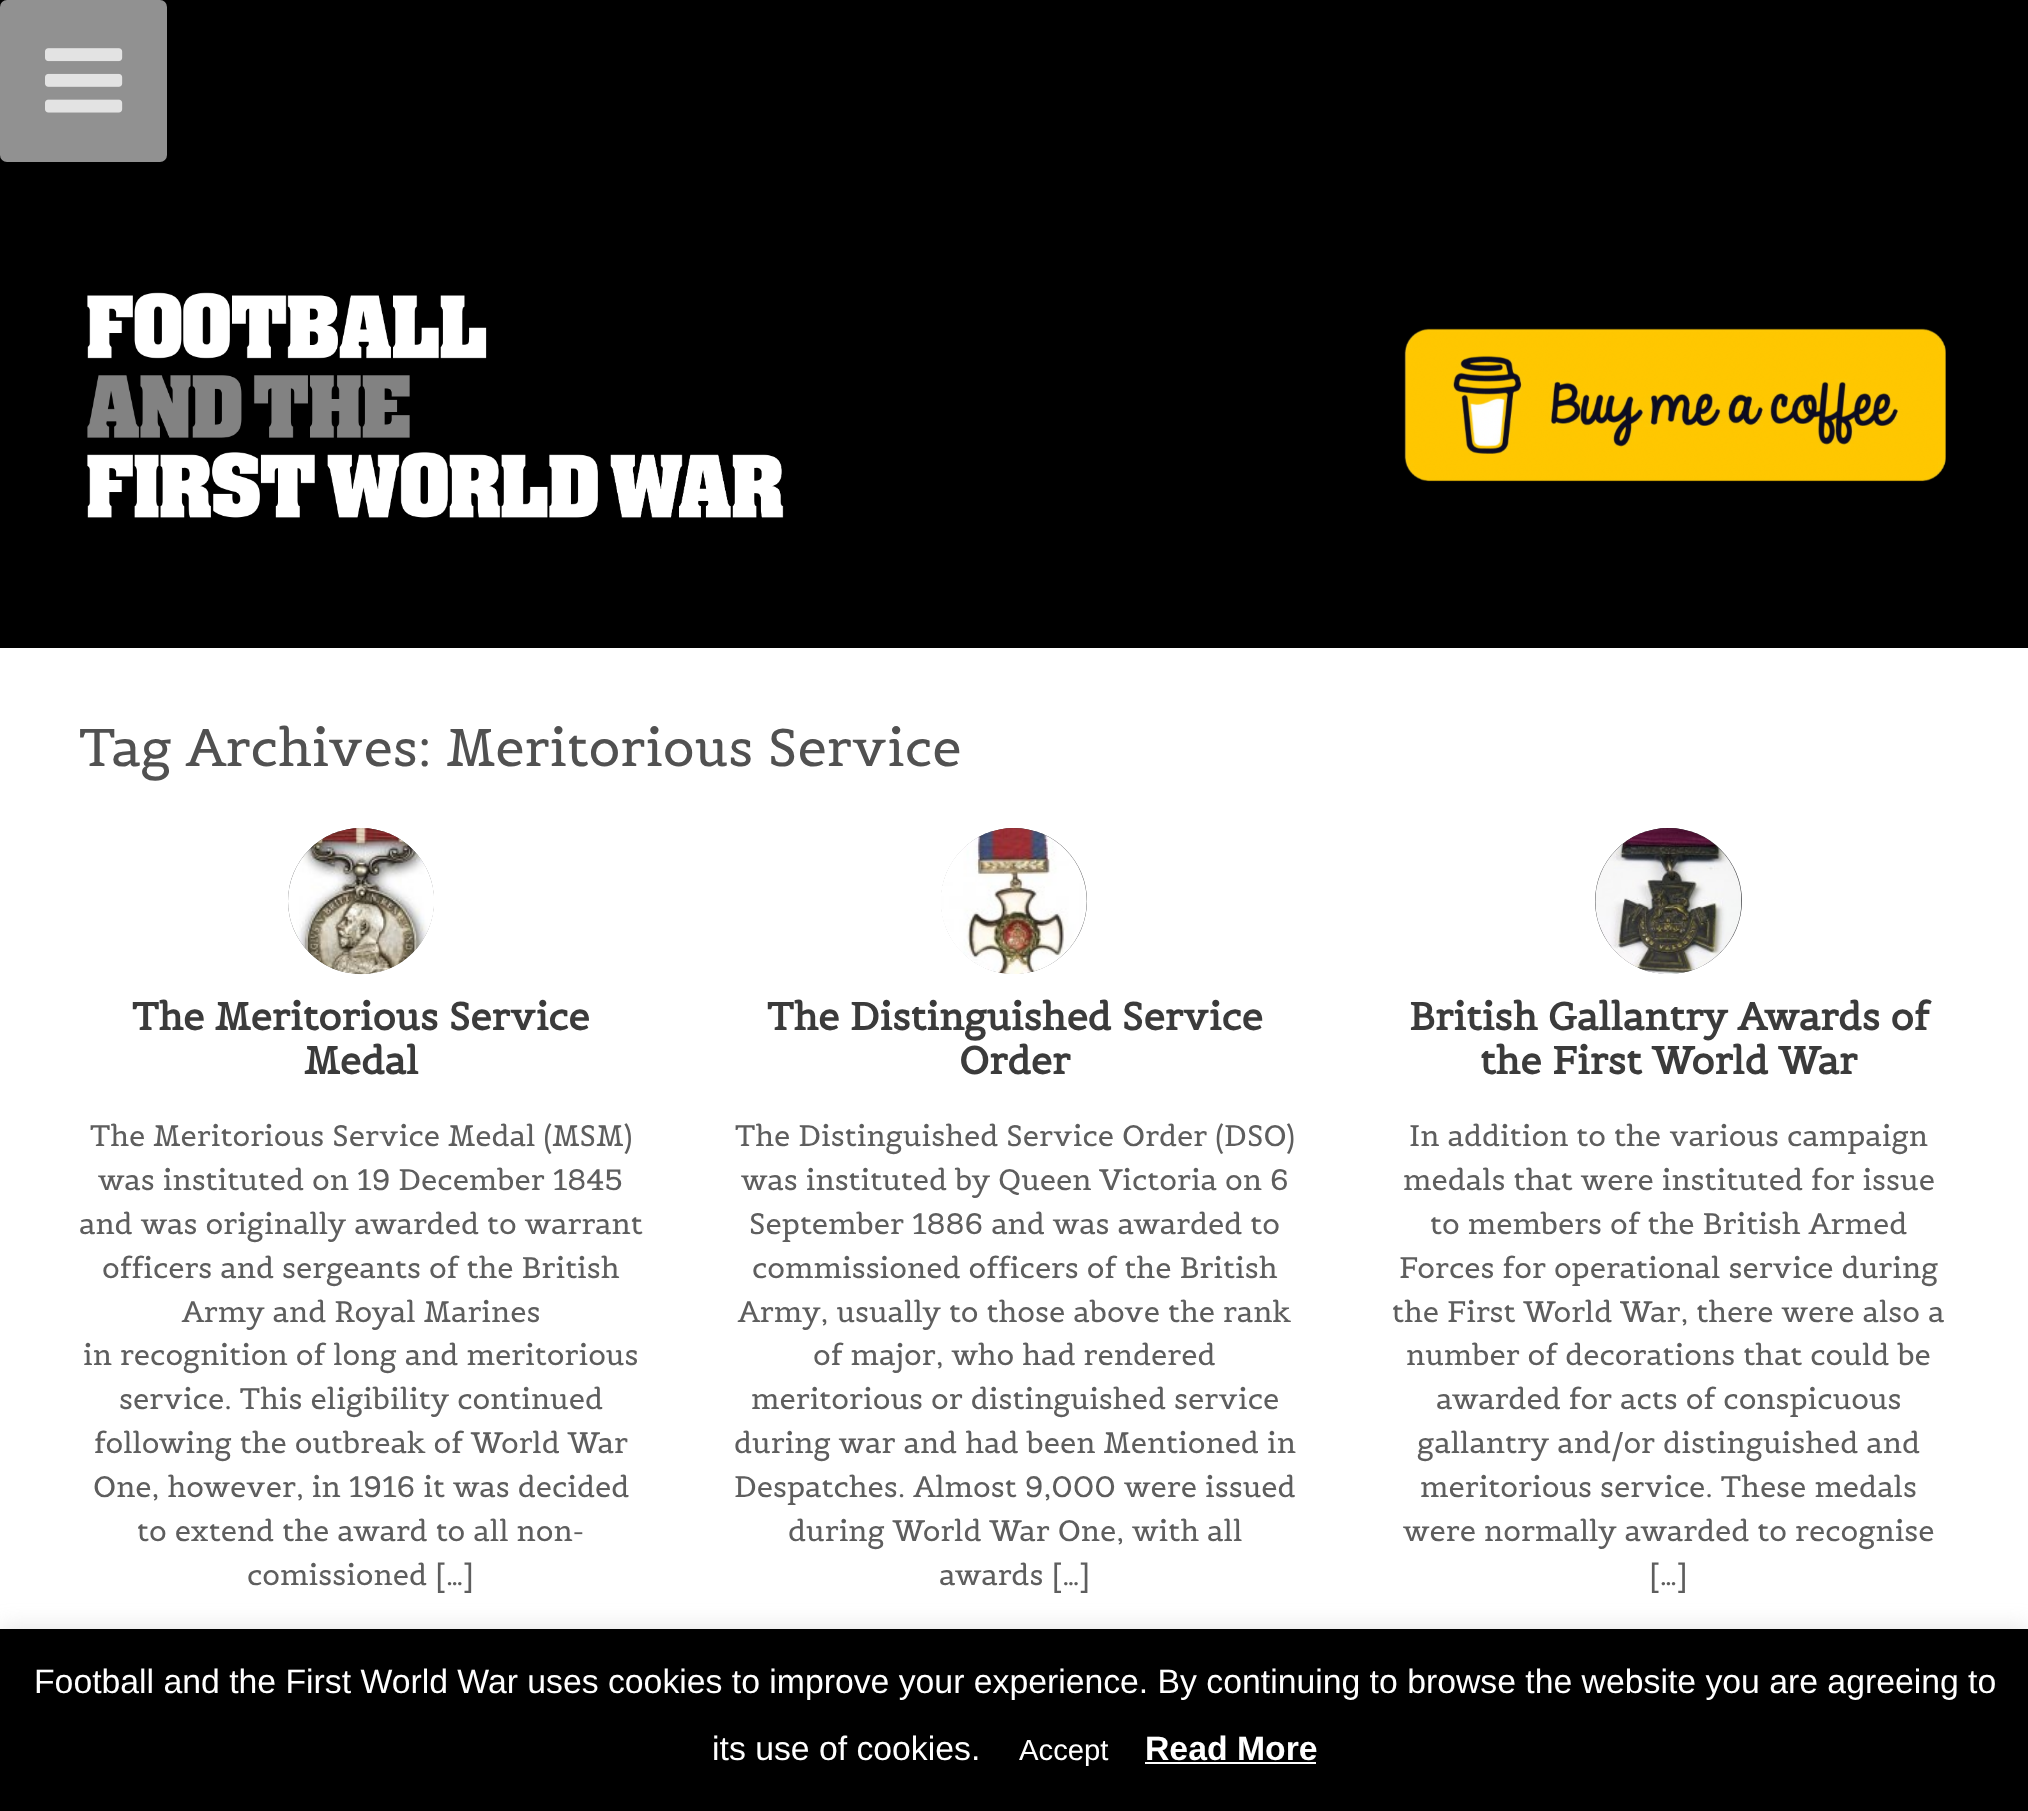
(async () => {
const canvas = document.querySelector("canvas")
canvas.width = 2028
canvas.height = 1811
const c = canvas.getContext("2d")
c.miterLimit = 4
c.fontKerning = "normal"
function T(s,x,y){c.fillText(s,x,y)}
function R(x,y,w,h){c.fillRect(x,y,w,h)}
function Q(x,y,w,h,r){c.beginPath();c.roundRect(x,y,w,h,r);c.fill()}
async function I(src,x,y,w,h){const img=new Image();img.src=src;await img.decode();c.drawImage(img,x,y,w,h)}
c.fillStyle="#000"
R(0,0,2028,1811)
c.fillStyle="#919191"
Q(0,0,167,162,7)
await I("1.png",45,48,78,65)
await I("2.png",87,292,697,226)
await I("3.png",1404,328,542,154)
c.fillStyle="#fff"
R(0,648,2028,981)
c.font="52.6px Belgrano"
c.fillStyle="#515151"
T("Tag Archives: Meritorious Service",79,766)
c.fillStyle="#3a3b3e"
c.beginPath()
c.arc(361,901,73,0,7)
c.fill()
await I("4.png",288,828,146,147)
c.font="bold 38.25px Belgrano"
c.fillStyle="#3b3b3b"
T("The Meritorious Service",132,1030)
T("Medal",304,1074)
c.font="29.25px Belgrano"
c.fillStyle="#5e5e5e"
T("The Meritorious Service Medal (MSM)",90,1146)
T("was instituted on 19 December 1845",98,1190)
T("and was originally awarded to warrant",79,1234)
T("officers and sergeants of the British",102,1278)
T("Army and Royal Marines",182,1322)
T("in recognition of long and meritorious",83,1365)
T("service. This eligibility continued",119,1409)
T("following the outbreak of World War",94,1453)
T("One, however, in 1916 it was decided",93,1497)
T("to extend the award to all non-",137,1541)
T("comissioned […]",247,1585)
c.fillStyle="#3a3b3e"
c.beginPath()
c.arc(1014,901,73,0,7)
c.fill()
await I("5.png",941,828,146,146)
c.font="bold 38.25px Belgrano"
c.fillStyle="#3b3b3b"
T("The Distinguished Service",767,1030)
T("Order",959,1074)
c.font="29.25px Belgrano"
c.fillStyle="#5e5e5e"
T("The Distinguished Service Order (DSO)",735,1146)
T("was instituted by Queen Victoria on 6",741,1190)
T("September 1886 and was awarded to",749,1234)
T("commissioned officers of the British",752,1278)
T("Army, usually to those above the rank",738,1322)
T("of major, who had rendered",813,1365)
T("meritorious or distinguished service",751,1409)
T("during war and had been Mentioned in",734,1453)
T("Despatches. Almost 9,000 were issued",734,1497)
T("during World War One, with all",788,1541)
T("awards […]",939,1585)
c.fillStyle="#3a3b3e"
Q(1595,828,147,146,73)
await I("6.png",1595,828,147,146)
c.font="bold 38.25px Belgrano"
c.fillStyle="#3b3b3b"
T("British Gallantry Awards of",1409,1030)
T("the First World War",1480,1074)
c.font="29.25px Belgrano"
c.fillStyle="#5e5e5e"
T("In addition to the various campaign",1409,1146)
T("medals that were instituted for issue",1403,1190)
T("to members of the British Armed",1430,1234)
T("Forces for operational service during",1399,1278)
T("the First World War, there were also a",1392,1322)
T("number of decorations that could be",1406,1365)
T("awarded for acts of conspicuous",1436,1409)
T("gallantry and/or distinguished and",1417,1453)
T("meritorious service. These medals",1420,1497)
T("were normally awarded to recognise",1403,1541)
T("[…]",1649,1585)
c.fillStyle="#acabab4d"
c.filter="blur(11px)"
c.beginPath()
c.rect(0,1627,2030,182)
c.fill()
c.filter="none"
c.fillStyle="#000"
R(0,1629,2028,182)
c.font="33.75px Liberation Sans"
c.fillStyle="#fff"
T("Football and the First World War uses cookies to improve your experience. By continuing to browse the website you are agreeing to",34,1693)
T("its use of cookies.",712,1760)
c.font="29.25px Liberation Sans"
T("Accept",1019,1760)
c.font="bold 33.75px Liberation Sans"
T("Read More",1145,1760)
R(1145,1762,171,2)
})()
